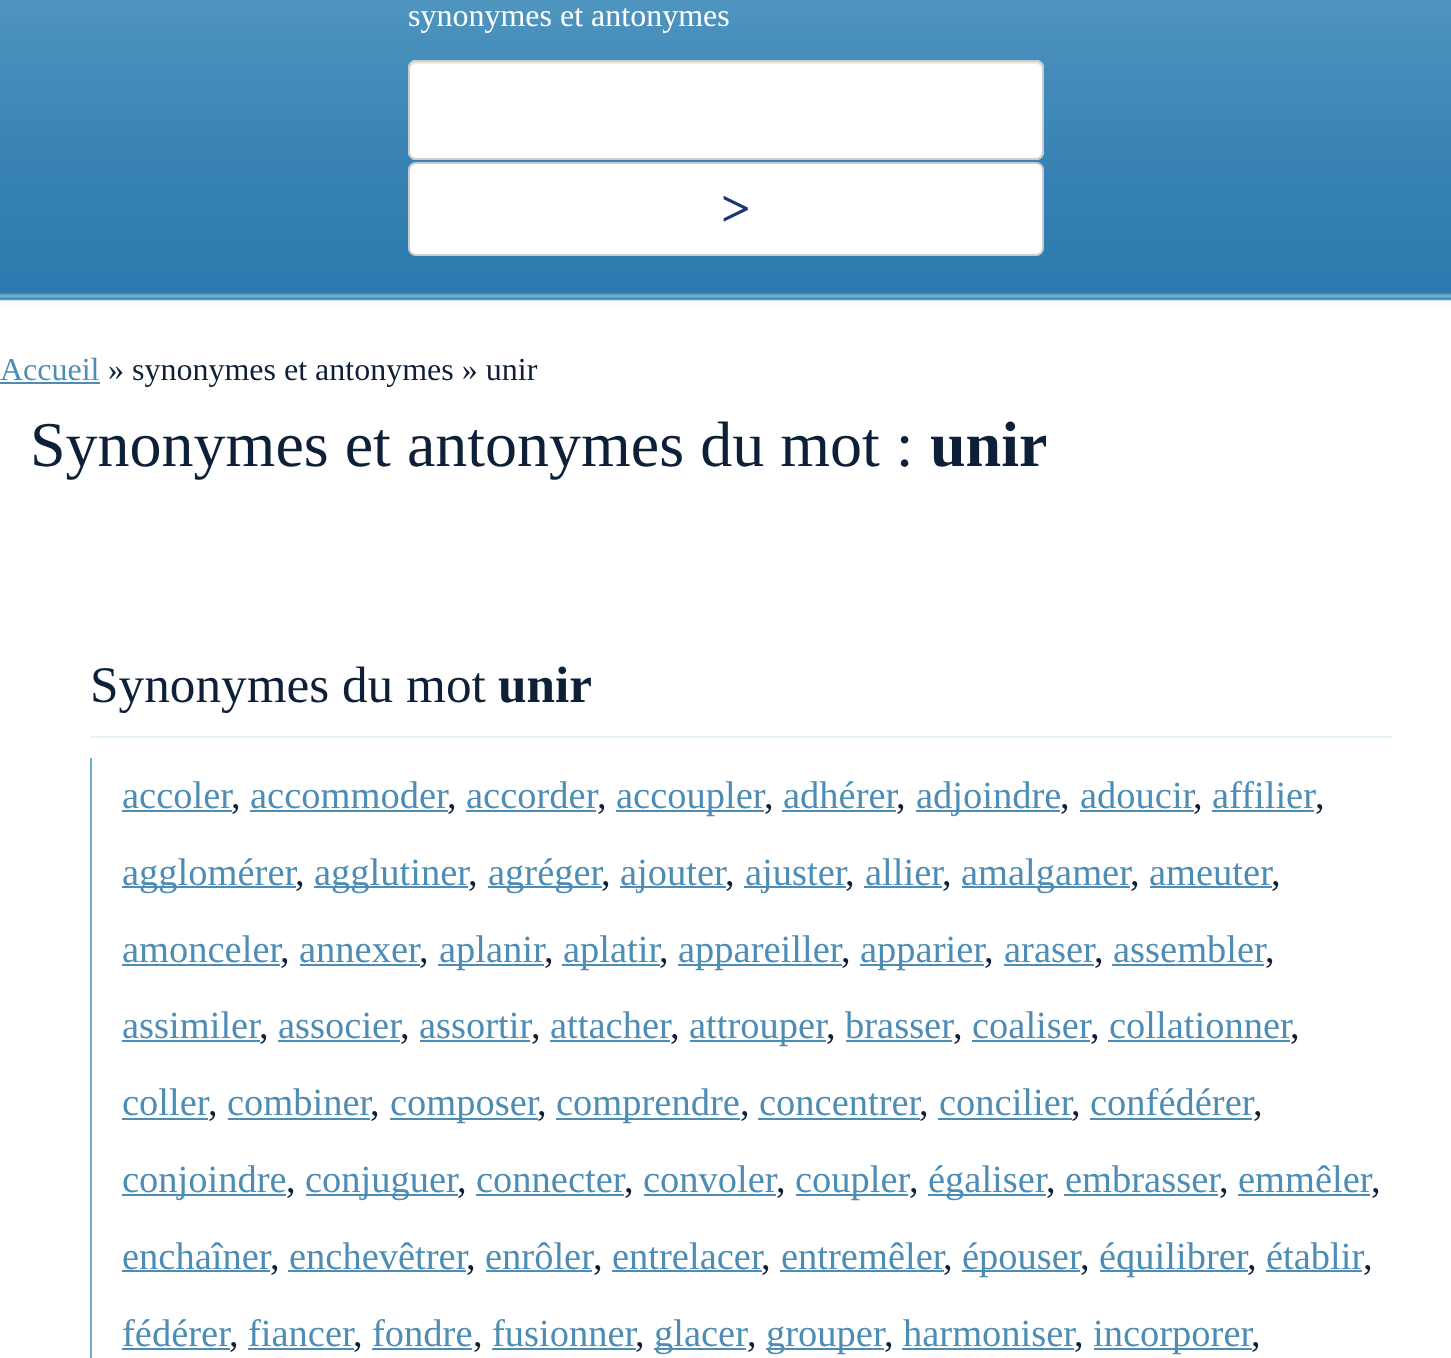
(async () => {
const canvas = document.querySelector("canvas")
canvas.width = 1451
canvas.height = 1358
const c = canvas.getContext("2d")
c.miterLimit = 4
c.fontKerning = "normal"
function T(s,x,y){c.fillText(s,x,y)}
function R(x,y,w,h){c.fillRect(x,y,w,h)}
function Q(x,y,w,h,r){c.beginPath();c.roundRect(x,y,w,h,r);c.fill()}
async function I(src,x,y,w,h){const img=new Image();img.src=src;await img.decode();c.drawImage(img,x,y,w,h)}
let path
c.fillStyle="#fff"
R(0,0,1451,1358)
await I("1.png",0,0,1451,307)
c.font="32px Liberation Serif"
T("synonymes et antonymes",408,26)
Q(408,60,636,100,8)
c.fillStyle="#ececec"
path = new Path2D("M416 64h620c3 0 6 3 6 6v-2c0-3-3-6-6-6h-620c-3 0-6 3-6 6v2c0-3 3-6 6-6z")
c.fill(path)
c.beginPath()
c.roundRect(409,61,634,98,7)
c.strokeStyle="#ccc"
c.lineWidth=2
c.stroke()
c.fillStyle="#fff"
c.beginPath()
c.roundRect(409,163,634,92,7)
c.fill()
c.stroke()
c.font="bold 52px Liberation Serif"
c.fillStyle="#1a3675"
T(">",721,226)
c.font="32px Liberation Serif"
c.fillStyle="#4d8db5"
T("Accueil",0,380)
R(0,382,100,2)
c.fillStyle="#0e2037"
T("» synonymes et antonymes » unir",108,380)
c.font="64px Liberation Serif"
T("Synonymes et antonymes du mot :",30,466)
c.font="bold 64px Liberation Serif"
T("unir",930,466)
c.fillStyle="#e7f4fb"
R(90,736,1302,2)
c.font="51.25px Liberation Serif"
c.fillStyle="#0e2037"
T("Synonymes du mot",90,702)
c.font="bold 51.25px Liberation Serif"
T("unir",498,702)
c.fillStyle="#6cadcd"
R(90,758,2,600)
c.font="38.5px Liberation Serif"
c.fillStyle="#4d8db5"
T("accoler",122,808)
R(122,810,110,2)
c.fillStyle="#0e2037"
T(",",231,808)
c.fillStyle="#4d8db5"
T("accommoder",250,808)
R(250,810,198,2)
c.fillStyle="#0e2037"
T(",",447,808)
c.fillStyle="#4d8db5"
T("accorder",466,808)
R(466,810,130,2)
c.fillStyle="#0e2037"
T(",",597,808)
c.fillStyle="#4d8db5"
R(616,810,148,2)
T("accoupler",616,808)
c.fillStyle="#0e2037"
T(",",764,808)
c.fillStyle="#4d8db5"
T("adhérer",783,808)
R(782,810,114,2)
c.fillStyle="#0e2037"
T(",",896,808)
c.fillStyle="#4d8db5"
R(916,810,144,2)
T("adjoindre",916,808)
c.fillStyle="#0e2037"
T(",",1060,808)
c.fillStyle="#4d8db5"
T("adoucir",1080,808)
R(1080,810,114,2)
c.fillStyle="#0e2037"
T(",",1193,808)
c.fillStyle="#4d8db5"
T("affilier",1212,808)
R(1212,810,102,2)
c.fillStyle="#0e2037"
T(",",1315,808)
c.fillStyle="#4d8db5"
R(122,886,174,2)
T("agglomérer",122,885)
c.fillStyle="#0e2037"
T(",",295,885)
c.fillStyle="#4d8db5"
R(314,886,154,2)
T("agglutiner",314,885)
c.fillStyle="#0e2037"
T(",",468,885)
c.fillStyle="#4d8db5"
R(488,886,114,2)
T("agréger",488,885)
c.fillStyle="#0e2037"
T(",",601,885)
c.fillStyle="#4d8db5"
R(620,886,106,2)
T("ajouter",620,885)
c.fillStyle="#0e2037"
T(",",725,885)
c.fillStyle="#4d8db5"
R(744,886,102,2)
T("ajuster",745,885)
c.fillStyle="#0e2037"
T(",",845,885)
c.fillStyle="#4d8db5"
T("allier",865,885)
R(864,886,78,2)
c.fillStyle="#0e2037"
T(",",942,885)
c.fillStyle="#4d8db5"
R(962,886,168,2)
T("amalgamer",961,885)
c.fillStyle="#0e2037"
T(",",1130,885)
c.fillStyle="#4d8db5"
T("ameuter",1149,885)
R(1150,886,122,2)
c.fillStyle="#0e2037"
T(",",1271,885)
c.fillStyle="#4d8db5"
T("amonceler",122,962)
R(122,964,158,2)
c.fillStyle="#0e2037"
T(",",280,962)
c.fillStyle="#4d8db5"
T("annexer",299,962)
R(300,964,120,2)
c.fillStyle="#0e2037"
T(",",419,962)
c.fillStyle="#4d8db5"
R(438,964,106,2)
T("aplanir",439,962)
c.fillStyle="#0e2037"
T(",",544,962)
c.fillStyle="#4d8db5"
R(562,964,98,2)
T("aplatir",563,962)
c.fillStyle="#0e2037"
T(",",659,962)
c.fillStyle="#4d8db5"
R(678,964,164,2)
T("appareiller",678,962)
c.fillStyle="#0e2037"
T(",",841,962)
c.fillStyle="#4d8db5"
R(860,964,124,2)
T("apparier",860,962)
c.fillStyle="#0e2037"
T(",",984,962)
c.fillStyle="#4d8db5"
T("araser",1004,962)
R(1004,964,90,2)
c.fillStyle="#0e2037"
T(",",1094,962)
c.fillStyle="#4d8db5"
T("assembler",1113,962)
R(1112,964,152,2)
c.fillStyle="#0e2037"
T(",",1265,962)
c.fillStyle="#4d8db5"
T("assimiler",122,1038)
R(122,1040,138,2)
c.fillStyle="#0e2037"
T(",",259,1038)
c.fillStyle="#4d8db5"
T("associer",278,1038)
R(278,1040,122,2)
c.fillStyle="#0e2037"
T(",",400,1038)
c.fillStyle="#4d8db5"
T("assortir",419,1038)
R(420,1040,110,2)
c.fillStyle="#0e2037"
T(",",531,1038)
c.fillStyle="#4d8db5"
T("attacher",550,1038)
R(550,1040,120,2)
c.fillStyle="#0e2037"
T(",",670,1038)
c.fillStyle="#4d8db5"
R(690,1040,136,2)
T("attrouper",689,1038)
c.fillStyle="#0e2037"
T(",",826,1038)
c.fillStyle="#4d8db5"
T("brasser",845,1038)
R(846,1040,106,2)
c.fillStyle="#0e2037"
T(",",953,1038)
c.fillStyle="#4d8db5"
T("coaliser",972,1038)
R(972,1040,118,2)
c.fillStyle="#0e2037"
T(",",1090,1038)
c.fillStyle="#4d8db5"
T("collationner",1109,1038)
R(1108,1040,182,2)
c.fillStyle="#0e2037"
T(",",1290,1038)
c.fillStyle="#4d8db5"
T("coller",122,1115)
R(122,1118,86,2)
c.fillStyle="#0e2037"
T(",",208,1115)
c.fillStyle="#4d8db5"
T("combiner",227,1115)
R(228,1118,142,2)
c.fillStyle="#0e2037"
T(",",370,1115)
c.fillStyle="#4d8db5"
R(390,1118,148,2)
T("composer",390,1115)
c.fillStyle="#0e2037"
T(",",537,1115)
c.fillStyle="#4d8db5"
R(556,1118,184,2)
T("comprendre",556,1115)
c.fillStyle="#0e2037"
T(",",740,1115)
c.fillStyle="#4d8db5"
T("concentrer",759,1115)
R(758,1118,162,2)
c.fillStyle="#0e2037"
T(",",919,1115)
c.fillStyle="#4d8db5"
T("concilier",939,1115)
R(938,1118,134,2)
c.fillStyle="#0e2037"
T(",",1071,1115)
c.fillStyle="#4d8db5"
T("confédérer",1090,1115)
R(1090,1118,162,2)
c.fillStyle="#0e2037"
T(",",1253,1115)
c.fillStyle="#4d8db5"
R(122,1194,164,2)
T("conjoindre",122,1192)
c.fillStyle="#0e2037"
T(",",286,1192)
c.fillStyle="#4d8db5"
R(306,1194,152,2)
T("conjuguer",305,1192)
c.fillStyle="#0e2037"
T(",",457,1192)
c.fillStyle="#4d8db5"
T("connecter",476,1192)
R(476,1194,148,2)
c.fillStyle="#0e2037"
T(",",624,1192)
c.fillStyle="#4d8db5"
T("convoler",643,1192)
R(644,1194,132,2)
c.fillStyle="#0e2037"
T(",",776,1192)
c.fillStyle="#4d8db5"
R(796,1194,112,2)
T("coupler",795,1192)
c.fillStyle="#0e2037"
T(",",909,1192)
c.fillStyle="#4d8db5"
R(928,1194,118,2)
T("égaliser",928,1192)
c.fillStyle="#0e2037"
T(",",1046,1192)
c.fillStyle="#4d8db5"
T("embrasser",1065,1192)
R(1064,1194,154,2)
c.fillStyle="#0e2037"
T(",",1219,1192)
c.fillStyle="#4d8db5"
T("emmêler",1238,1192)
R(1238,1194,132,2)
c.fillStyle="#0e2037"
T(",",1371,1192)
c.fillStyle="#4d8db5"
T("enchaîner",122,1269)
R(122,1270,148,2)
c.fillStyle="#0e2037"
T(",",270,1269)
c.fillStyle="#4d8db5"
T("enchevêtrer",289,1269)
R(288,1270,178,2)
c.fillStyle="#0e2037"
T(",",466,1269)
c.fillStyle="#4d8db5"
T("enrôler",485,1269)
R(486,1270,106,2)
c.fillStyle="#0e2037"
T(",",593,1269)
c.fillStyle="#4d8db5"
T("entrelacer",612,1269)
R(612,1270,150,2)
c.fillStyle="#0e2037"
T(",",761,1269)
c.fillStyle="#4d8db5"
T("entremêler",781,1269)
R(780,1270,164,2)
c.fillStyle="#0e2037"
T(",",943,1269)
c.fillStyle="#4d8db5"
R(962,1270,118,2)
T("épouser",962,1269)
c.fillStyle="#0e2037"
T(",",1080,1269)
c.fillStyle="#4d8db5"
R(1100,1270,148,2)
T("équilibrer",1099,1269)
c.fillStyle="#0e2037"
T(",",1247,1269)
c.fillStyle="#4d8db5"
T("établir",1266,1269)
R(1266,1270,96,2)
c.fillStyle="#0e2037"
T(",",1363,1269)
c.fillStyle="#4d8db5"
T("fédérer",122,1346)
R(122,1348,108,2)
c.fillStyle="#0e2037"
T(",",229,1346)
c.fillStyle="#4d8db5"
T("fiancer",248,1346)
R(248,1348,106,2)
c.fillStyle="#0e2037"
T(",",353,1346)
c.fillStyle="#4d8db5"
T("fondre",372,1346)
R(372,1348,100,2)
c.fillStyle="#0e2037"
T(",",473,1346)
c.fillStyle="#4d8db5"
T("fusionner",492,1346)
R(492,1348,144,2)
c.fillStyle="#0e2037"
T(",",635,1346)
c.fillStyle="#4d8db5"
R(654,1348,92,2)
T("glacer",654,1346)
c.fillStyle="#0e2037"
T(",",747,1346)
c.fillStyle="#4d8db5"
R(766,1348,118,2)
T("grouper",766,1346)
c.fillStyle="#0e2037"
T(",",884,1346)
c.fillStyle="#4d8db5"
T("harmoniser",903,1346)
R(902,1348,172,2)
c.fillStyle="#0e2037"
T(",",1074,1346)
c.fillStyle="#4d8db5"
R(1094,1348,158,2)
T("incorporer",1093,1346)
c.fillStyle="#0e2037"
T(",",1251,1346)
})()
